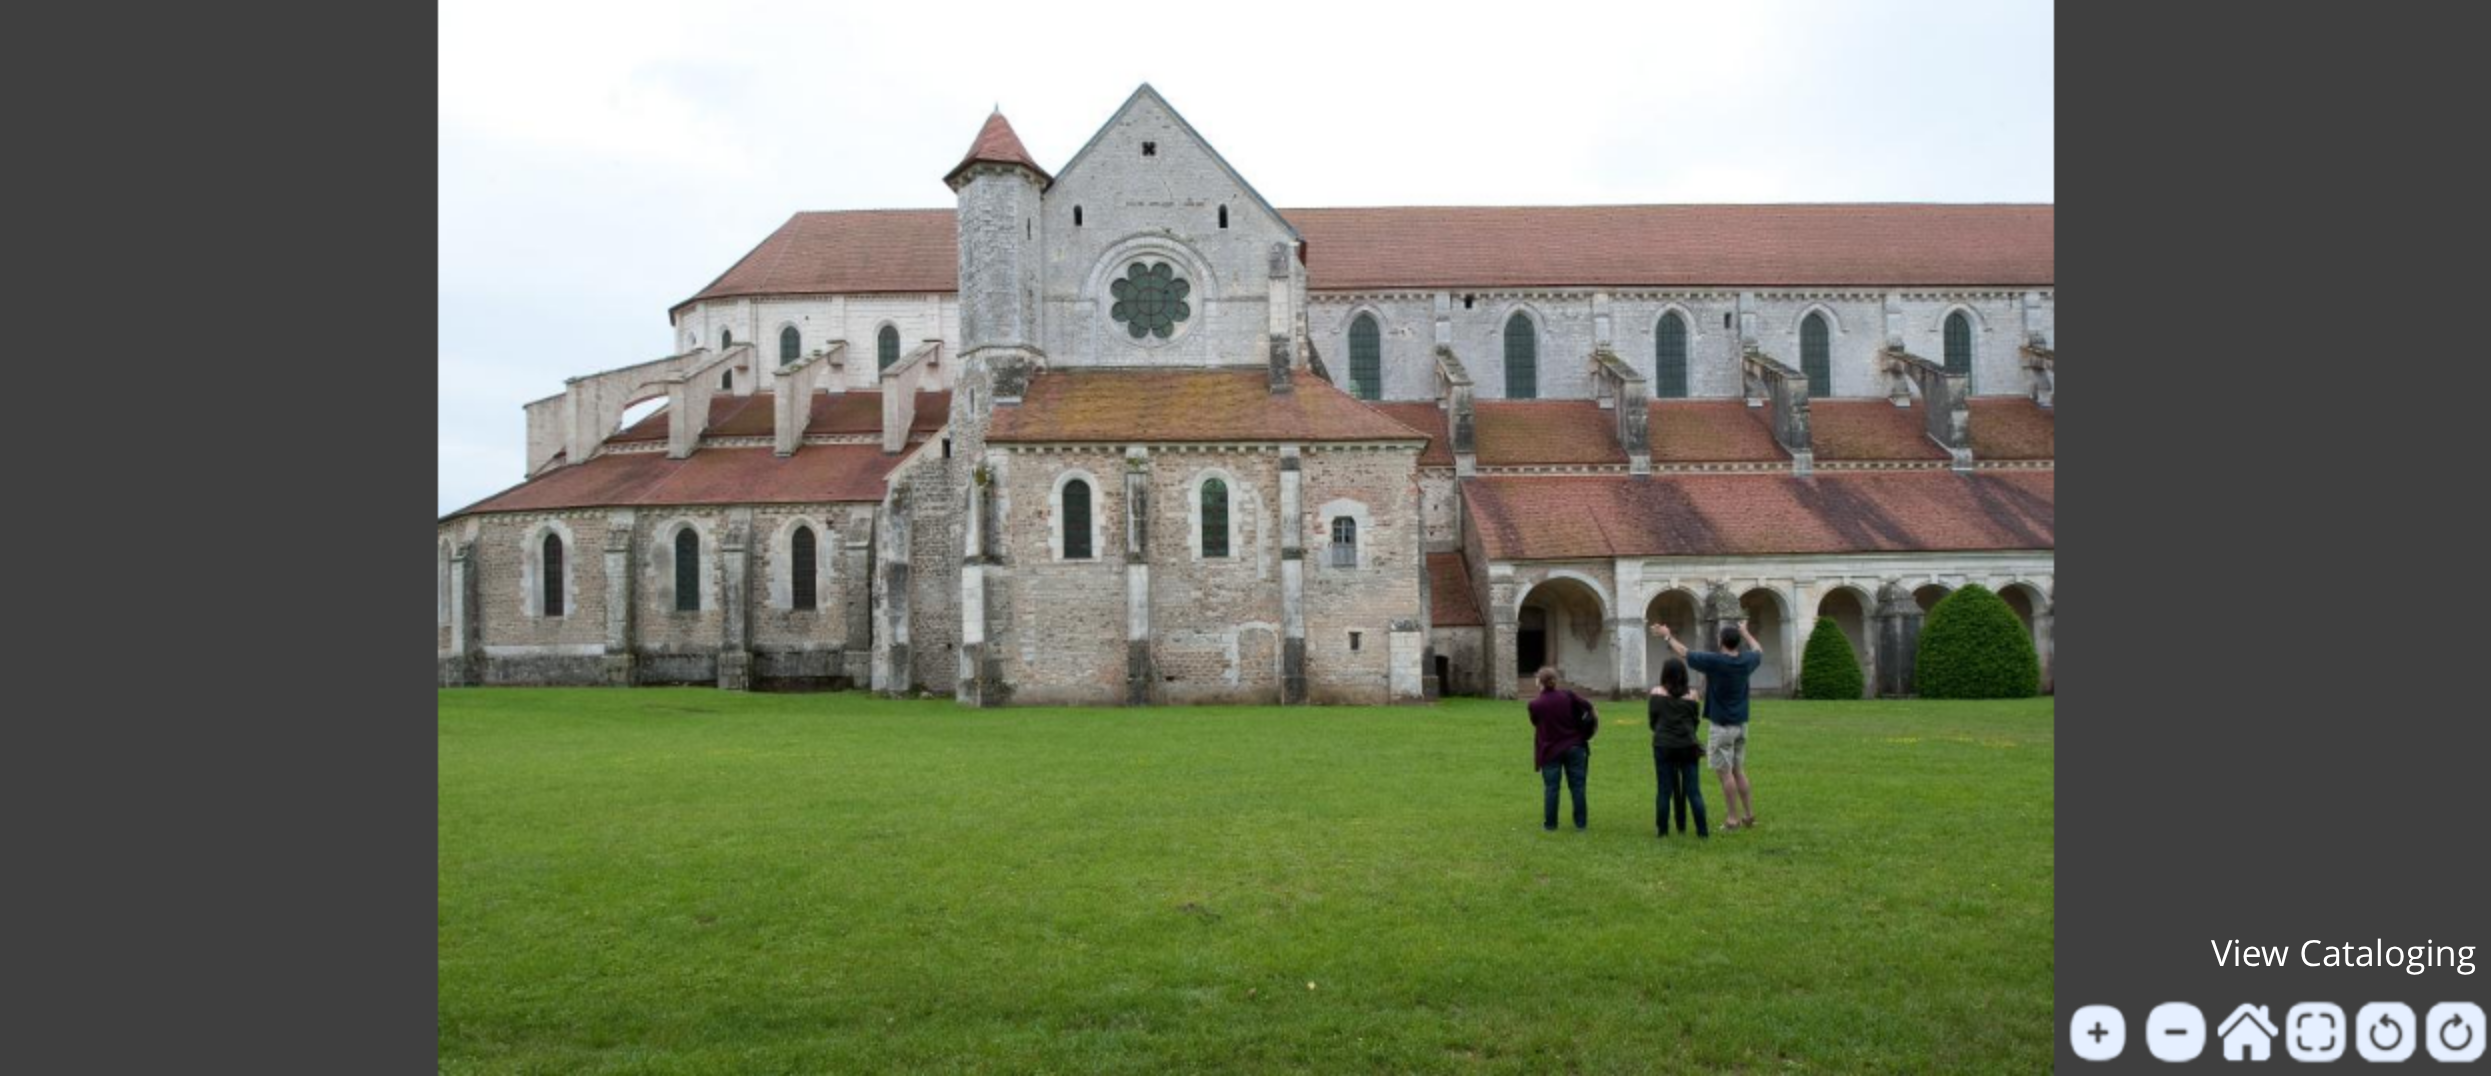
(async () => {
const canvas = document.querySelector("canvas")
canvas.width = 2491
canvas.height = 1076
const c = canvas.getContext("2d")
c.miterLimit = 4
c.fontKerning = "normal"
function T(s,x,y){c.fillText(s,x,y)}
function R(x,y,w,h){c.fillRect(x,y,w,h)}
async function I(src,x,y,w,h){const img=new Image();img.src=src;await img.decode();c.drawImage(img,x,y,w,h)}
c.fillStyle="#3f3f3f"
R(0,0,2491,1076)
await I("1.png",437,0,1618,1076)
await I("2.png",2069,1003,58,60)
await I("3.png",2069,1003,58,59)
await I("4.png",2144,1000,64,64)
await I("5.png",2145,1001,62,62)
await I("6.png",2217,1001,62,62)
await I("7.png",2217,1002,62,60)
await I("8.png",2284,1000,64,64)
await I("9.png",2285,1001,62,62)
await I("10.png",2354,1000,64,64)
await I("11.png",2355,1001,62,62)
await I("12.png",2424,1000,64,64)
await I("13.png",2425,1001,62,62)
c.wordSpacing="1px"
c.font="36px Open Sans"
c.fillStyle="#fff"
T("View Cataloging",2211,966)
})()
